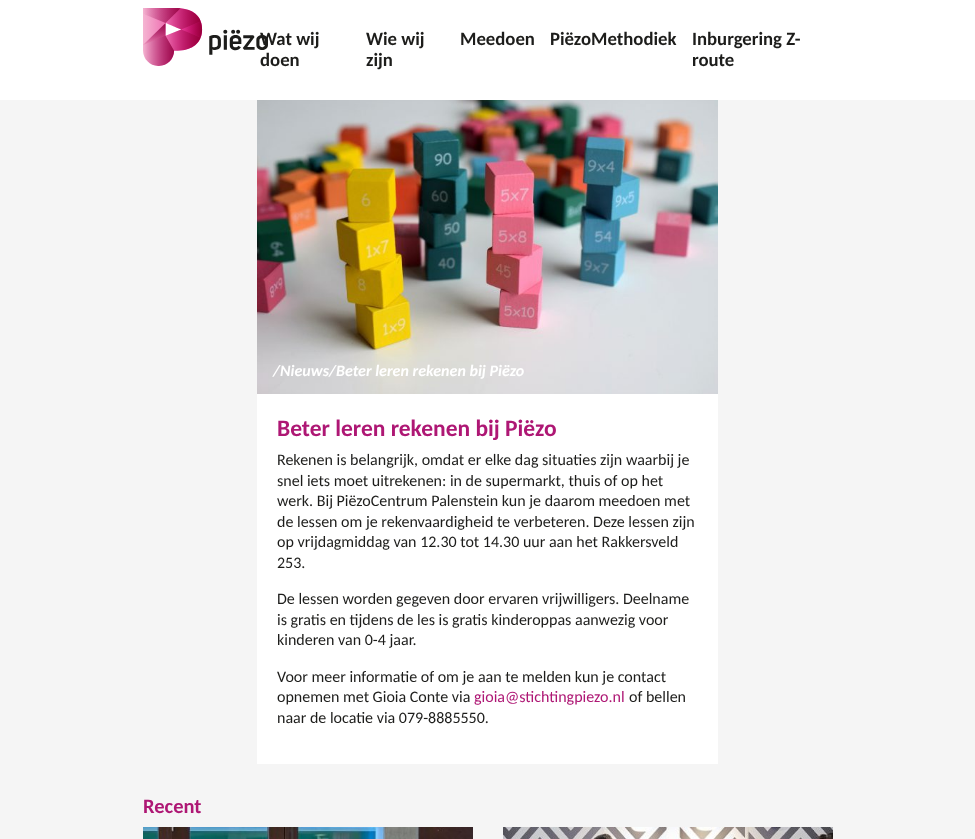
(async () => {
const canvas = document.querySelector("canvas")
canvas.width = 975
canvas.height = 839
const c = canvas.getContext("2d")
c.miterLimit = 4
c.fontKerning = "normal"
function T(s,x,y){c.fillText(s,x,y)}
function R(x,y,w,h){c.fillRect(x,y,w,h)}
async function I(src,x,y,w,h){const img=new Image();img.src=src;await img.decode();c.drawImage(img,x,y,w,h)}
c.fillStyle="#f5f5f5"
R(0,0,975,839)
c.fillStyle="#fff"
R(0,0,975,100)
c.font="bold 18.75px Carlito"
c.fillStyle="#1d1d1b"
T("Wat wij",260,45)
T("doen",260,66)
await I("1.png",143,8,125,58)
T("Wie wij",366,45)
T("zijn",366,66)
T("Meedoen",460,45)
T("PiëzoMethodiek",550,45)
T("Inburgering Z-",692,45)
T("route",692,66)
await I("2.png",257,100,461,294)
c.font="italic bold 16px Carlito"
c.fillStyle="#fff"
T("/",273,376)
T("/Beter leren rekenen bij Piëzo",329,376)
T("Nieuws",280,376)
R(257,394,461,370)
c.font="bold 23.5px Carlito"
c.fillStyle="#ae1774"
T("Beter leren rekenen bij Piëzo",277,436)
c.font="16px Carlito"
c.fillStyle="#1d1d1b"
T("Rekenen is belangrijk, omdat er elke dag situaties zijn waarbij je",277,465)
T("snel iets moet uitrekenen: in de supermarkt, thuis of op het",277,486)
T("werk. Bij PiëzoCentrum Palenstein kun je daarom meedoen met",277,506)
T("de lessen om je rekenvaardigheid te verbeteren. Deze lessen zijn",277,527)
T("op vrijdagmiddag van 12.30 tot 14.30 uur aan het Rakkersveld",277,547)
T("253.",277,568)
T("De lessen worden gegeven door ervaren vrijwilligers. Deelname",277,604)
T("is gratis en tijdens de les is gratis kinderoppas aanwezig voor",277,625)
T("kinderen van 0-4 jaar.",277,645)
T("Voor meer informatie of om je aan te melden kun je contact",277,682)
T("opnemen met Gioia Conte via",277,702)
c.fillStyle="#ae1774"
T("gioia@stichtingpiezo.nl",474,702)
c.fillStyle="#1d1d1b"
T("of bellen",629,702)
T("naar de locatie via 079-8885550.",277,723)
c.font="bold 20.5px Carlito"
c.fillStyle="#ae1774"
T("Recent",143,813)
await I("3.png",143,827,330,12)
await I("4.png",503,827,330,12)
})()
